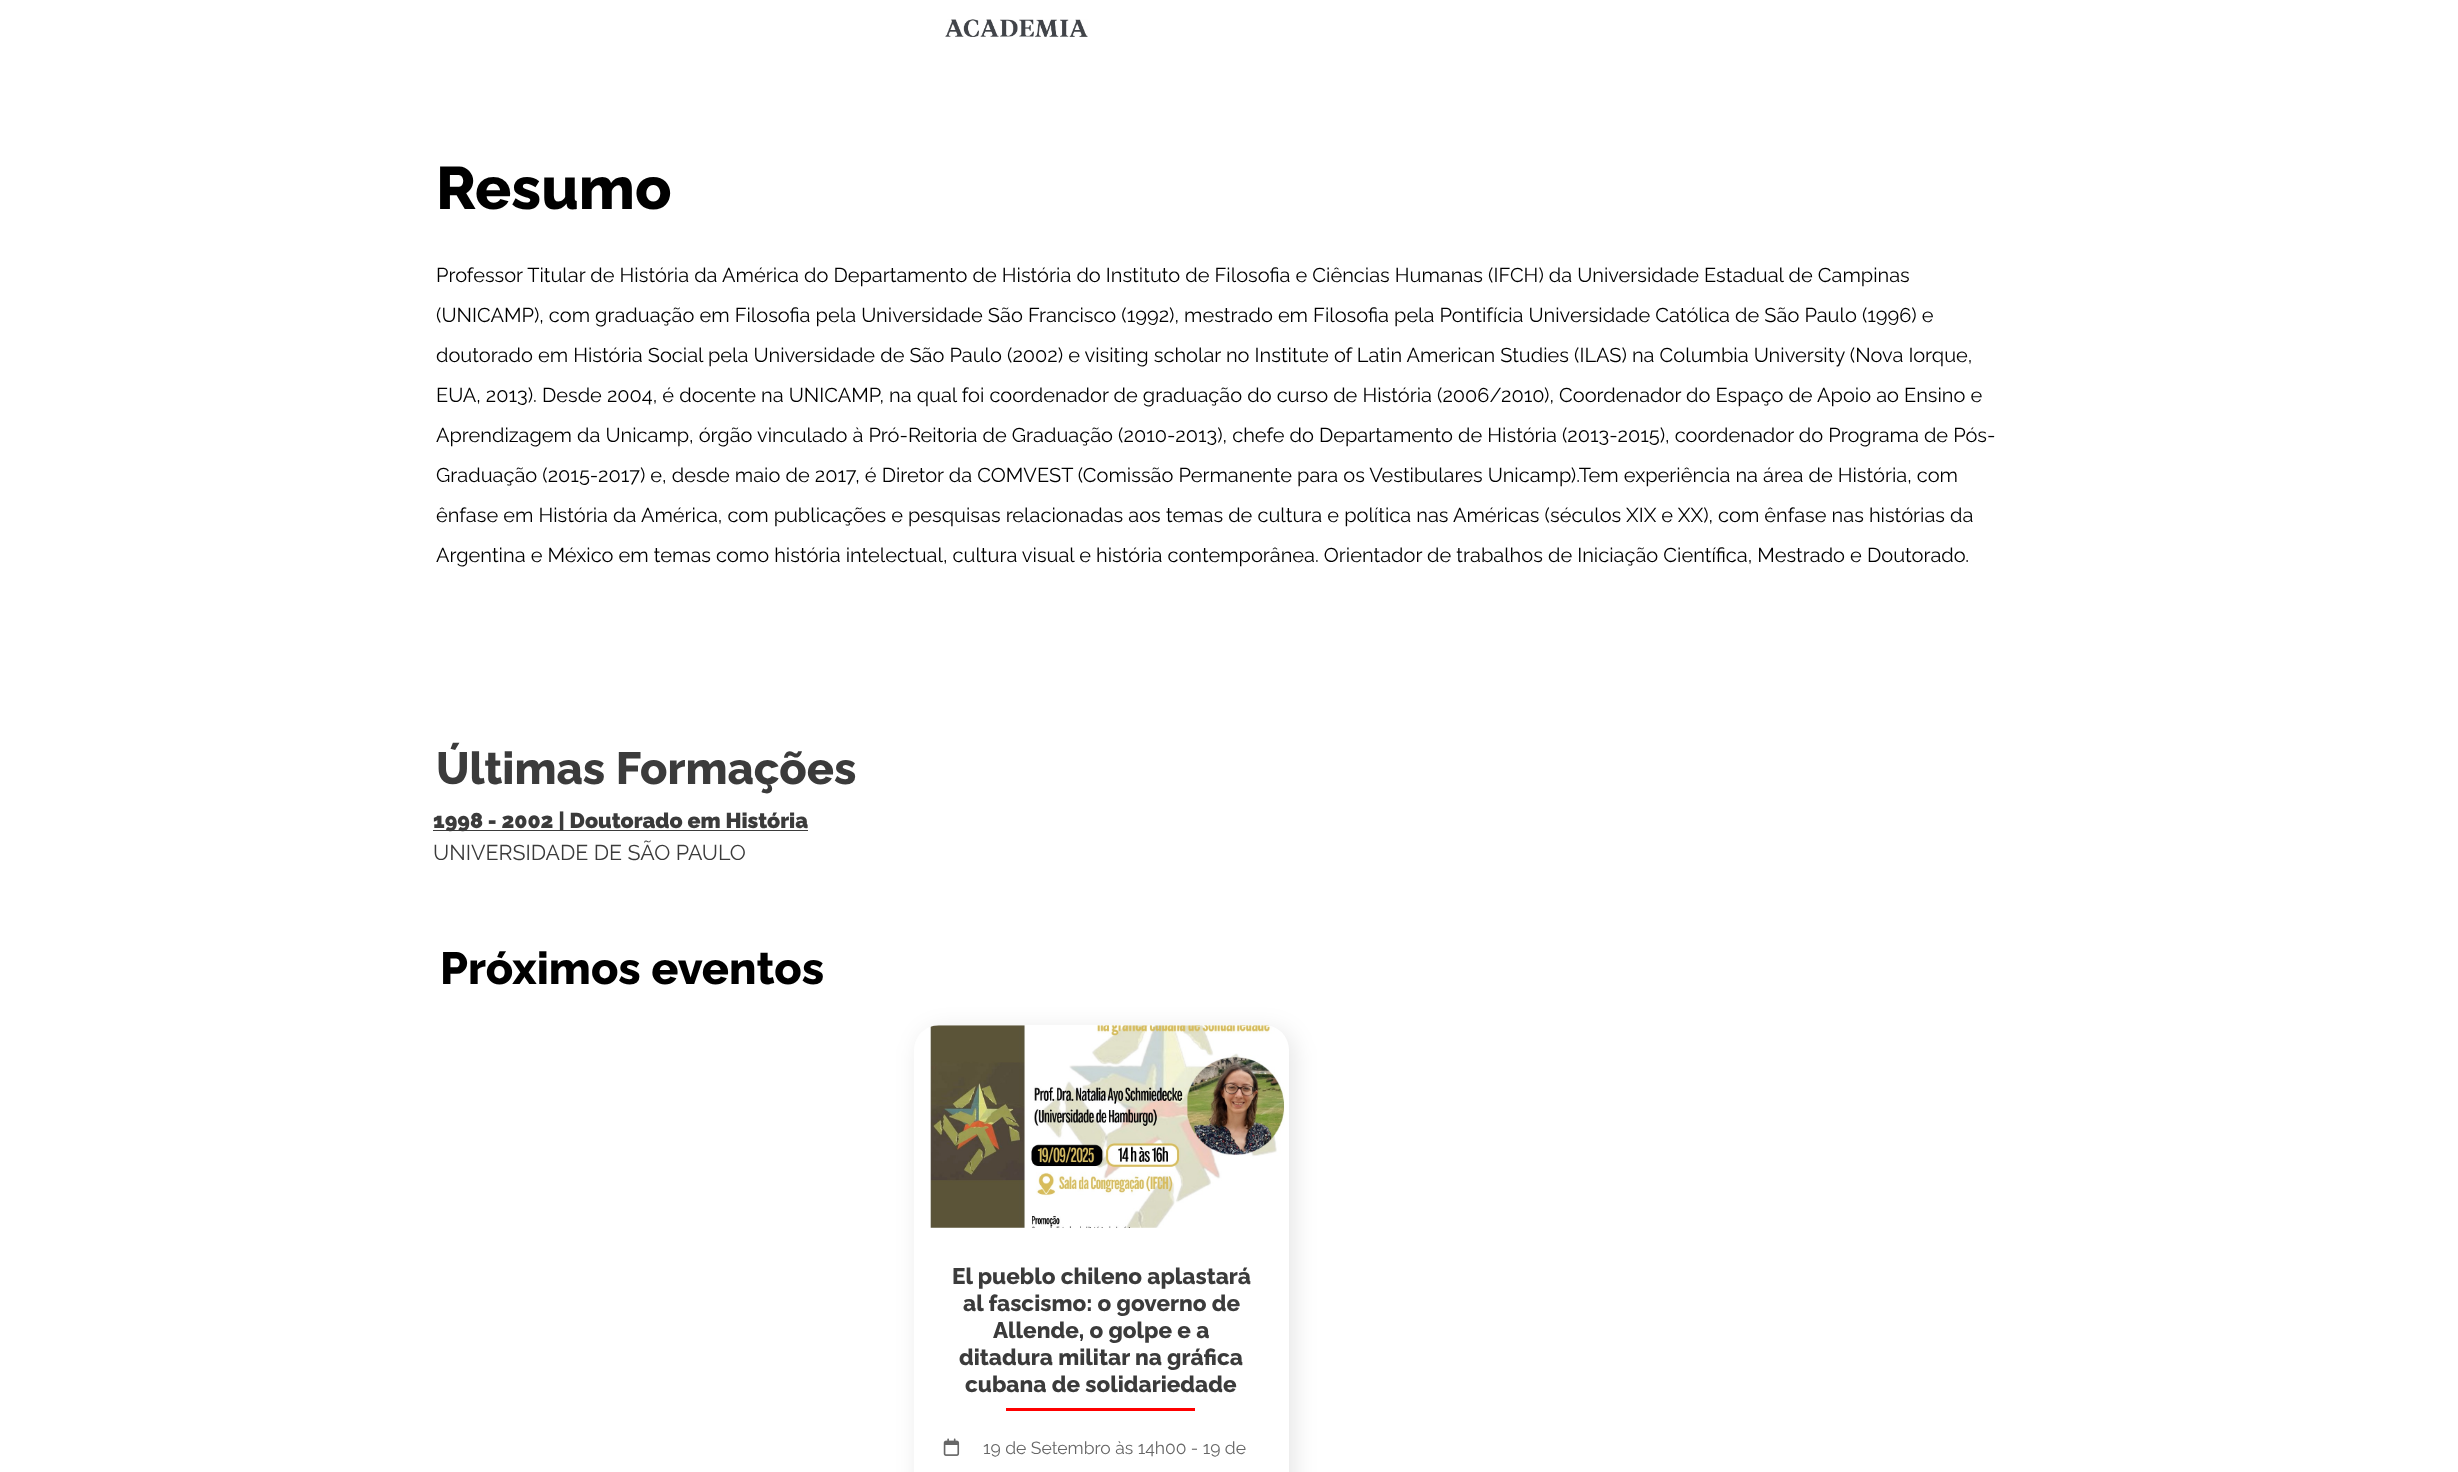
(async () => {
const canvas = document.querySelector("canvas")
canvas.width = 2458
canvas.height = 1472
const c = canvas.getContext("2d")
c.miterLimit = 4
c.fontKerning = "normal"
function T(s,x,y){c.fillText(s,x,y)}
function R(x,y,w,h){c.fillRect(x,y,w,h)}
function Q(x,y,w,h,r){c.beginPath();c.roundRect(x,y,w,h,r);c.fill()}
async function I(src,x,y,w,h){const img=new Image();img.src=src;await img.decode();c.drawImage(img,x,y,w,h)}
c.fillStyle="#fff"
R(0,0,2458,1472)
await I("1.png",945,19,143,18)
c.font="800 60px Raleway"
c.fillStyle="#000"
T("Resumo",436,209)
c.font="20px Raleway"
T("Professor Titular de História da América do Departamento de História do Instituto de Filosofia e Ciências Humanas (IFCH) da Universidade Estadual de Campinas",436,282)
T("(UNICAMP), com graduação em Filosofia pela Universidade São Francisco (1992), mestrado em Filosofia pela Pontifícia Universidade Católica de São Paulo (1996) e",436,322)
T("doutorado em História Social pela Universidade de São Paulo (2002) e visiting scholar no Institute of Latin American Studies (ILAS) na Columbia University (Nova Iorque,",436,362)
T("EUA, 2013). Desde 2004, é docente na UNICAMP, na qual foi coordenador de graduação do curso de História (2006/2010), Coordenador do Espaço de Apoio ao Ensino e",436,402)
T("Aprendizagem da Unicamp, órgão vinculado à Pró-Reitoria de Graduação (2010-2013), chefe do Departamento de História (2013-2015), coordenador do Programa de Pós-",436,442)
T("Graduação (2015-2017) e, desde maio de 2017, é Diretor da COMVEST (Comissão Permanente para os Vestibulares Unicamp).Tem experiência na área de História, com",436,482)
T("ênfase em História da América, com publicações e pesquisas relacionadas aos temas de cultura e política nas Américas (séculos XIX e XX), com ênfase nas histórias da",436,522)
T("Argentina e México em temas como história intelectual, cultura visual e história contemporânea. Orientador de trabalhos de Iniciação Científica, Mestrado e Doutorado.",436,562)
c.font="800 45px Raleway"
c.fillStyle="#3b3b3b"
T("Últimas Formações",436,784)
R(433,830,375,1)
c.font="900 21.4px Raleway"
T("1998 - 2002 | Doutorado em História",433,828)
c.font="21.4px Raleway"
T("UNIVERSIDADE DE SÃO PAULO",433,860)
c.font="800 45px Raleway"
c.fillStyle="#000"
T("Próximos eventos",440,984)
c.fillStyle="#0000001a"
c.filter="blur(12.5px)"
c.beginPath()
c.roundRect(919,1030,375,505,25)
c.fill()
c.filter="none"
c.fillStyle="#fff"
Q(914,1025,375,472,25)
await I("2.png",930,1025,355,203)
c.font="800 22.5px Raleway"
c.fillStyle="#3b3b3b"
T("El pueblo chileno aplastará",952,1284)
T("al fascismo: o governo de",963,1311)
T("Allende, o golpe e a",993,1338)
T("ditadura militar na gráfica",959,1365)
T("cubana de solidariedade",965,1392)
c.fillStyle="#f00"
R(1006,1408,189,3)
await I("3.png",943,1438,17,18)
c.font="17.5px Raleway"
c.fillStyle="#666"
T("19 de Setembro às 14h00 - 19 de",983,1454)
})()
